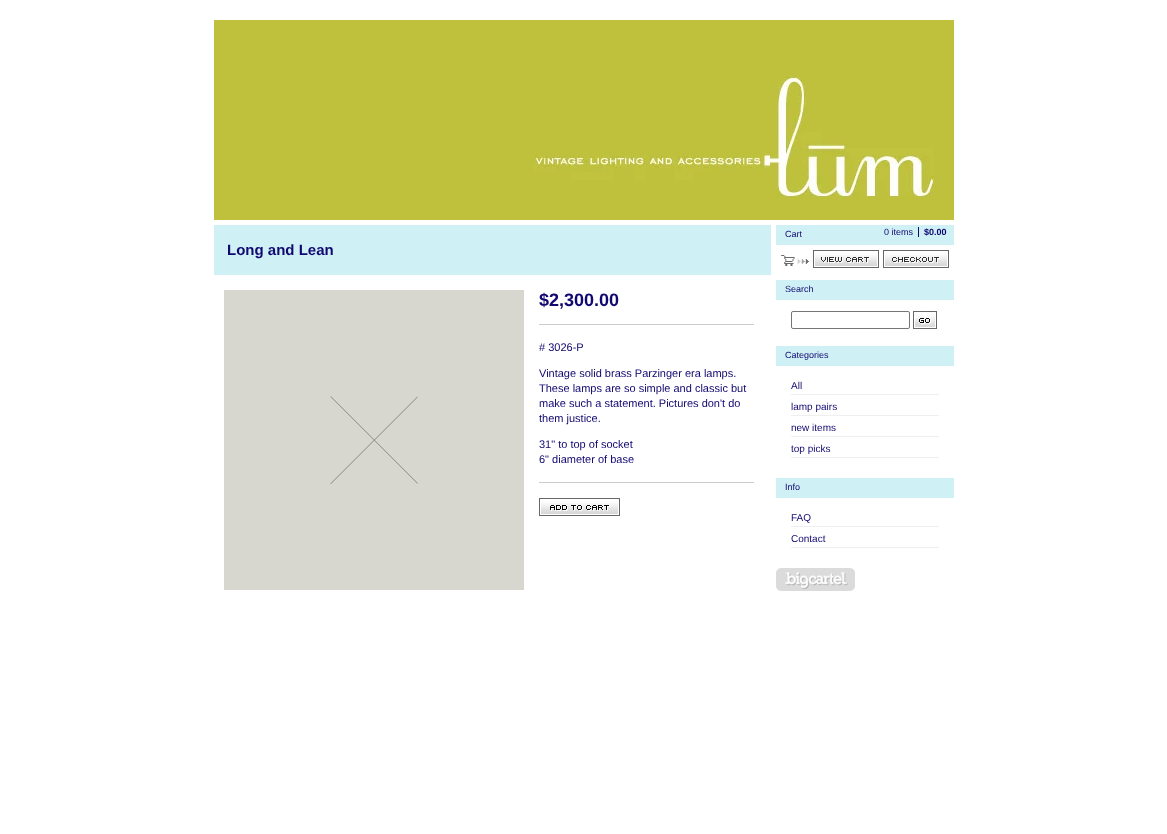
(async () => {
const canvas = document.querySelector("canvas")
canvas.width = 1167
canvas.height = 834
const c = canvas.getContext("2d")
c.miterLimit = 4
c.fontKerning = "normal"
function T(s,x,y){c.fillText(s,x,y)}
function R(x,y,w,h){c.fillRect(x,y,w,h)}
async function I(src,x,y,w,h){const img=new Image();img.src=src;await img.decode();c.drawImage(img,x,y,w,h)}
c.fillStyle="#fff"
R(0,0,1167,834)
await I("1.png",214,20,740,200)
c.fillStyle="#cff0f5"
R(214,225,557,50)
c.font="bold 15px Liberation Sans"
c.fillStyle="#110870"
T("Long and Lean",227,255)
await I("2.png",224,290,300,300)
c.fillStyle="#ccc"
R(539,324,215,1)
c.font="bold 18px Liberation Sans"
c.fillStyle="#110870"
T("$2,300.00",539,306)
c.fillStyle="#ccc"
R(539,482,215,1)
c.font="11px Liberation Sans"
c.fillStyle="#110870"
T("# 3026-P",539,351)
T("Vintage solid brass Parzinger era lamps.",539,377)
T("These lamps are so simple and classic but",539,392)
T("make such a statement. Pictures don't do",539,407)
T("them justice.",539,422)
T("31\" to top of socket",539,448)
T("6\" diameter of base",539,463)
await I("3.png",539,498,81,18)
await I("4.png",781,255,28,11)
c.fillStyle="#cff0f5"
R(776,225,178,20)
c.font="9px Liberation Sans"
c.fillStyle="#110870"
T("Cart",785,237)
T("0 items",884,235)
R(918,227,1,10)
c.font="bold 9px Liberation Sans"
T("$0.00",924,235)
await I("5.png",813,250,66,18)
await I("6.png",883,250,66,18)
c.fillStyle="#cff0f5"
R(776,280,178,20)
c.font="9px Liberation Sans"
c.fillStyle="#110870"
T("Search",785,292)
c.beginPath()
c.roundRect(791.5,311.5,118,17,1.5)
c.strokeStyle="#767676"
c.stroke()
await I("7.png",913,311,24,18)
c.fillStyle="#cff0f5"
R(776,346,178,20)
c.fillStyle="#110870"
T("Categories",785,358)
c.fillStyle="#efefef"
R(791,394,148,1)
c.font="10px Liberation Sans"
c.fillStyle="#110870"
T("All",791,389)
c.fillStyle="#efefef"
R(791,415,148,1)
c.fillStyle="#110870"
T("lamp pairs",791,410)
c.fillStyle="#efefef"
R(791,436,148,1)
c.fillStyle="#110870"
T("new items",791,431)
c.fillStyle="#efefef"
R(791,457,148,1)
c.fillStyle="#110870"
T("top picks",791,452)
c.fillStyle="#cff0f5"
R(776,478,178,20)
c.font="9px Liberation Sans"
c.fillStyle="#110870"
T("Info",785,490)
c.fillStyle="#efefef"
R(791,526,148,1)
c.font="10px Liberation Sans"
c.fillStyle="#110870"
T("FAQ",791,521)
c.fillStyle="#efefef"
R(791,547,148,1)
c.fillStyle="#110870"
T("Contact",791,542)
await I("8.png",776,568,79,23)
})()
